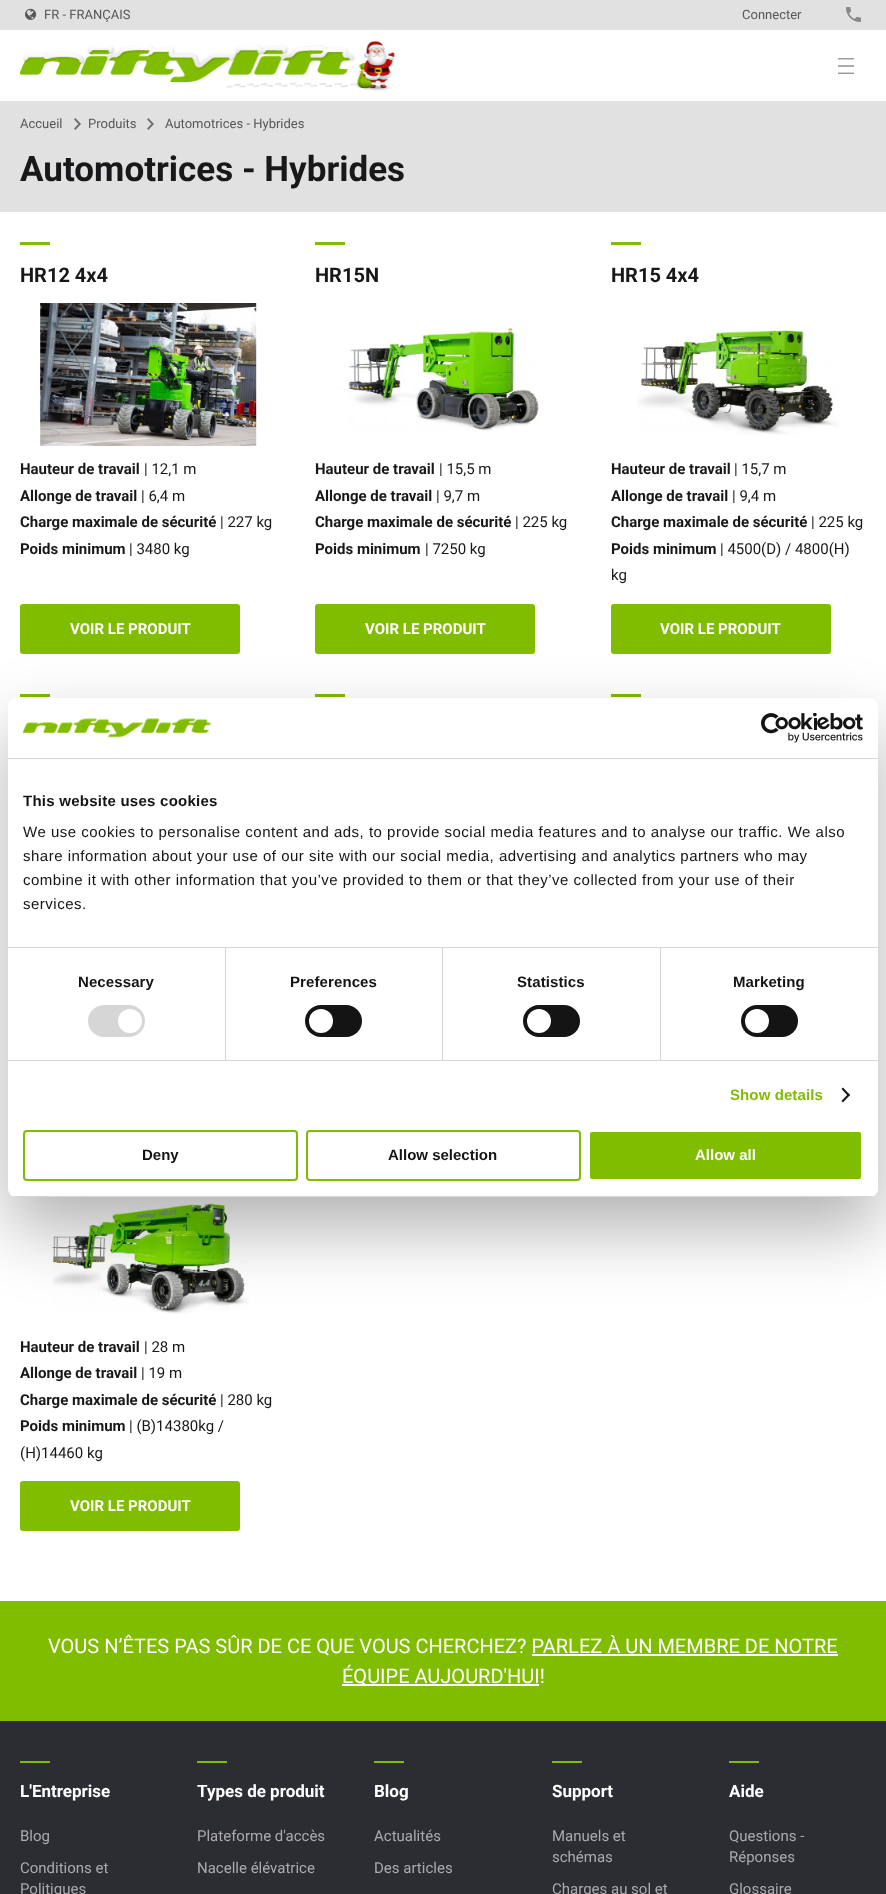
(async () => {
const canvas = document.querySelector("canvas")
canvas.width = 886
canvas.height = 1894
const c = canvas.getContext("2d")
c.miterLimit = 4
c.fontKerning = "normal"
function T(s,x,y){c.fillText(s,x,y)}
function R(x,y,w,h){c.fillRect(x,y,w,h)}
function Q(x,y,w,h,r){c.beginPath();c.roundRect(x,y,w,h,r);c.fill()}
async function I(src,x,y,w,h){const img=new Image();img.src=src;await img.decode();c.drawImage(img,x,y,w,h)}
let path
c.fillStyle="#fff"
R(0,0,886,1894)
c.fillStyle="#e1e1e1"
R(0,0,886,30)
await I("1.png",25,8,12,12)
c.font="13px Roboto"
c.fillStyle="#575757"
T("FR - FRANÇAIS",44,19)
await I("2.png",846,7,15,15)
T("Connecter",742,19)
await I("3.png",20,41,376,50)
await I("4.png",838,58,16,16)
c.fillStyle="#e1e1e1"
R(0,101,886,111)
c.fillStyle="#575757"
T("Accueil",20,128)
await I("5.png",74,118,7,12)
T("Produits",88,128)
await I("5.png",147,118,7,12)
T("Automotrices - Hybrides",165,128)
c.font="bold 35px Roboto"
c.fillStyle="#18181a"
T("Automotrices - Hybrides",20,181)
c.fillStyle="#80bc00"
R(20,242,30,3)
c.font="bold 20px Roboto"
c.fillStyle="#18181a"
T("HR12 4x4",20,282)
await I("6.png",40,303,217,143)
c.font="bold 15px Roboto"
T("Hauteur de travail",20,474)
c.font="15px Roboto"
T("| 12,1 m",144,474)
c.font="bold 15px Roboto"
T("Allonge de travail",20,501)
c.font="15px Roboto"
T("| 6,4 m",141,501)
c.font="bold 15px Roboto"
T("Charge maximale de sécurité",20,527)
c.font="15px Roboto"
T("| 227 kg",220,527)
c.font="bold 15px Roboto"
T("Poids minimum",20,554)
c.font="15px Roboto"
T("| 3480 kg",129,554)
c.fillStyle="#80bc00"
Q(20,604,220,50,3)
c.font="bold 15px Roboto"
c.fillStyle="#fff"
T("VOIR LE PRODUIT",70,634)
c.fillStyle="#80bc00"
R(315,242,30,3)
c.font="bold 20px Roboto"
c.fillStyle="#18181a"
T("HR15N",315,282)
await I("7.png",348,327,191,104)
c.font="bold 15px Roboto"
T("Hauteur de travail",315,474)
c.font="15px Roboto"
T("| 15,5 m",439,474)
c.font="bold 15px Roboto"
T("Allonge de travail",315,501)
c.font="15px Roboto"
T("| 9,7 m",436,501)
c.font="bold 15px Roboto"
T("Charge maximale de sécurité",315,527)
c.font="15px Roboto"
T("| 225 kg",515,527)
c.font="bold 15px Roboto"
T("Poids minimum",315,554)
c.font="15px Roboto"
T("| 7250 kg",425,554)
c.fillStyle="#80bc00"
Q(315,604,220,50,3)
c.font="bold 15px Roboto"
c.fillStyle="#fff"
T("VOIR LE PRODUIT",365,634)
c.fillStyle="#80bc00"
R(611,242,30,3)
c.font="bold 20px Roboto"
c.fillStyle="#18181a"
T("HR15 4x4",611,282)
await I("8.png",637,329,202,106)
c.font="bold 15px Roboto"
T("Hauteur de travail",611,474)
c.font="15px Roboto"
T("| 15,7 m",734,474)
c.font="bold 15px Roboto"
T("Allonge de travail",611,501)
c.font="15px Roboto"
T("| 9,4 m",732,501)
c.font="bold 15px Roboto"
T("Charge maximale de sécurité",611,527)
c.font="15px Roboto"
T("| 225 kg",811,527)
c.font="bold 15px Roboto"
T("Poids minimum",611,554)
c.font="15px Roboto"
T("| 4500(D) / 4800(H)",720,554)
T("kg",611,580)
c.fillStyle="#80bc00"
Q(611,604,220,50,3)
c.font="bold 15px Roboto"
c.fillStyle="#fff"
T("VOIR LE PRODUIT",660,634)
c.fillStyle="#80bc00"
R(20,694,30,3)
R(315,694,30,3)
R(611,694,30,3)
await I("9.png",52,1202,197,112)
c.fillStyle="#18181a"
T("Hauteur de travail",20,1352)
c.font="15px Roboto"
T("| 28 m",144,1352)
c.font="bold 15px Roboto"
T("Allonge de travail",20,1378)
c.font="15px Roboto"
T("| 19 m",141,1378)
c.font="bold 15px Roboto"
T("Charge maximale de sécurité",20,1405)
c.font="15px Roboto"
T("| 280 kg",220,1405)
c.font="bold 15px Roboto"
T("Poids minimum",20,1431)
c.font="15px Roboto"
T("| (B)14380kg /",129,1431)
T("(H)14460 kg",20,1458)
c.fillStyle="#80bc00"
Q(20,1481,220,50,3)
c.font="bold 15px Roboto"
c.fillStyle="#fff"
T("VOIR LE PRODUIT",70,1511)
c.fillStyle="#80bc00"
R(0,1601,886,120)
c.font="20px Roboto"
c.fillStyle="#fff"
T("VOUS N’ÊTES PAS SÛR DE CE QUE VOUS CHERCHEZ? PARLEZ À UN MEMBRE DE NOTRE",48,1653)
R(342,1684,197,2)
T("ÉQUIPE AUJOURD'HUI!",342,1683)
R(532,1654,306,2)
c.fillStyle="#0000004d"
c.filter="blur(34px)"
c.beginPath()
c.roundRect(8,730,870,499,8)
c.fill()
c.filter="none"
c.fillStyle="#fff"
Q(8,698,870,499,8)
c.fillStyle="#d6d6d6"
R(8,758,870,1)
await I("10.png",23,718,189,20)
await I("11.png",761,713,102,30)
R(8,947,870,1)
c.letterSpacing="0.25px"
c.font="bold 15px Liberation Sans"
c.fillStyle="#141414"
T("This website uses cookies",23,806)
c.letterSpacing="0.5px"
c.font="15px Liberation Sans"
T("We use cookies to personalise content and ads, to provide social media features and to analyse our traffic. We also",23,837)
T("share information about your use of our site with our social media, advertising and analytics partners who may",23,861)
T("combine it with other information that you’ve provided to them or that they’ve collected from your use of their",23,885)
T("services.",23,909)
c.fillStyle="#d6d6d6"
R(8,1060,870,1)
R(225,948,1,112)
c.letterSpacing="0.1px"
c.font="bold 15px Liberation Sans"
c.fillStyle="#141414"
T("Necessary",78,987)
c.fillStyle="#d6d6d6"
Q(88,1005,57,32,16)
c.fillStyle="#fff"
c.beginPath()
c.arc(130,1021,12,0,7)
c.fill()
c.fillStyle="#d6d6d6"
R(442,948,1,112)
c.fillStyle="#141414"
T("Preferences",290,987)
Q(305,1005,57,32,16)
c.fillStyle="#fff"
c.beginPath()
c.arc(321,1021,12,0,7)
c.fill()
c.fillStyle="#d6d6d6"
R(660,948,1,112)
c.fillStyle="#141414"
T("Statistics",517,987)
Q(523,1005,57,32,16)
c.fillStyle="#fff"
c.beginPath()
c.arc(539,1021,12,0,7)
c.fill()
c.fillStyle="#141414"
T("Marketing",733,987)
Q(741,1005,57,32,16)
c.fillStyle="#fff"
c.beginPath()
c.arc(757,1021,12,0,7)
c.fill()
c.fillStyle="#80bc00"
T("Show details",730,1100)
c.fillStyle="#141414"
path = new Path2D("M843 1087.5l7 7.5l-1.5 1.5l-7-7.5z")
c.fill(path)
path = new Path2D("M848.5 1093.5l1.5 1.5l-7 7.5l-1.5-1.5z")
c.fill(path)
c.save()
c.beginPath()
c.roundRect(8,698,870,499,8)
c.clip()
c.fillStyle="#d6d6d6"
R(8,1196,870,1)
c.restore()
c.beginPath()
c.roundRect(24,1131,273,49,3)
c.strokeStyle="#80bc00"
c.lineWidth=2
c.stroke()
c.letterSpacing="0px"
T("Deny",142,1160)
c.beginPath()
c.roundRect(307,1131,273,49,3)
c.stroke()
T("Allow selection",388,1160)
c.fillStyle="#80bc00"
c.beginPath()
c.roundRect(589,1131,273,49,3)
c.fill()
c.strokeStyle="#fff"
c.stroke()
c.fillStyle="#fff"
T("Allow all",695,1160)
c.fillStyle="#2b2d32"
R(0,1721,886,173)
c.fillStyle="#80bc00"
R(20,1761,30,2)
c.font="bold 17px Roboto"
c.fillStyle="#fff"
T("L'Entreprise",20,1797)
c.font="15px Roboto"
c.fillStyle="#ababad"
T("Blog",20,1841)
T("Conditions et",20,1873)
T("Politiques",20,1894)
c.fillStyle="#80bc00"
R(197,1761,30,2)
c.font="bold 17px Roboto"
c.fillStyle="#fff"
T("Types de produit",197,1797)
c.font="15px Roboto"
c.fillStyle="#ababad"
T("Plateforme d'accès",197,1841)
T("Nacelle élévatrice",197,1873)
c.fillStyle="#80bc00"
R(374,1761,30,2)
c.font="bold 17px Roboto"
c.fillStyle="#fff"
T("Blog",374,1797)
c.font="15px Roboto"
c.fillStyle="#ababad"
T("Actualités",374,1841)
T("Des articles",374,1873)
c.fillStyle="#80bc00"
R(552,1761,30,2)
c.font="bold 17px Roboto"
c.fillStyle="#fff"
T("Support",552,1797)
c.font="15px Roboto"
c.fillStyle="#ababad"
T("Manuels et",552,1841)
T("schémas",552,1862)
T("Charges au sol et",552,1894)
c.fillStyle="#80bc00"
R(729,1761,30,2)
c.font="bold 17px Roboto"
c.fillStyle="#fff"
T("Aide",729,1797)
c.font="15px Roboto"
c.fillStyle="#ababad"
T("Questions -",729,1841)
T("Réponses",729,1862)
T("Glossaire",729,1894)
})()
